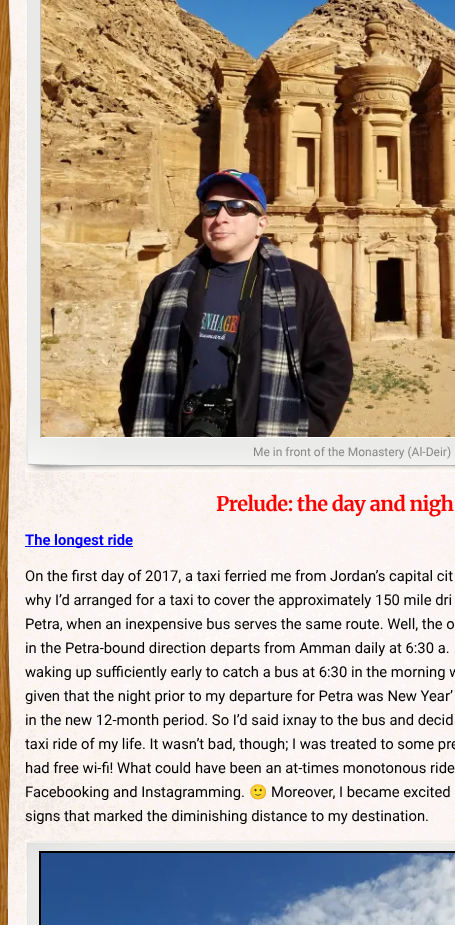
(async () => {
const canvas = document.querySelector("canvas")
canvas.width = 455
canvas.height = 925
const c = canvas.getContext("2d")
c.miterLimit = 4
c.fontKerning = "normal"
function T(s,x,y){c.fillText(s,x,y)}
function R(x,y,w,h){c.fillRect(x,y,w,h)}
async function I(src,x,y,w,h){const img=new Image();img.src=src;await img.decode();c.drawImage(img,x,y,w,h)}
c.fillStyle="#fff"
R(0,0,455,925)
await I("1.png",0,0,12,925)
await I("2.png",5,0,450,925)
c.fillStyle="#e9e9e8"
R(37,0,3,409)
await I("3.png",25,0,430,472)
c.fillStyle="#fff"
R(40,437,415,1)
c.fillStyle="#c0c0c0"
R(40,0,1,438)
await I("4.png",41,0,414,437)
c.font="12px Roboto"
c.fillStyle="#888"
T("Me in front of the Monastery (Al-Deir)",253,456)
c.letterSpacing="-0.5px"
c.font="300 20px Merriweather"
c.fillStyle="#f00"
T("Prelude: the day and nigh",216,511)
c.fillStyle="#00f"
R(25,546,108,1)
c.letterSpacing="0px"
c.font="bold 14.8px Roboto"
T("The longest ride",25,545)
c.font="14.8px Roboto"
c.fillStyle="#000"
T("On the first day of 2017, a taxi ferried me from Jordan’s capital cit",25,581)
T("why I’d arranged for a taxi to cover the approximately 150 mile dri",25,605)
T("Petra, when an inexpensive bus serves the same route. Well, the o",25,629)
T("in the Petra-bound direction departs from Amman daily at 6:30 a.",25,653)
T("waking up sufficiently early to catch a bus at 6:30 in the morning w",25,677)
T("given that the night prior to my departure for Petra was New Year’",25,701)
T("in the new 12-month period. So I’d said ixnay to the bus and decid",25,725)
T("taxi ride of my life. It wasn’t bad, though; I was treated to some pre",25,749)
T("had free wi-fi! What could have been an at-times monotonous ride",25,773)
T("Facebooking and Instagramming.",25,797)
c.font="14.8px Noto Color Emoji"
T("🙂",249,797)
c.font="14.8px Roboto"
T("Moreover, I became excited",271,797)
T("signs that marked the diminishing distance to my destination.",25,821)
c.fillStyle="#e9e9e8"
R(37,870,2,55)
await I("5.png",25,840,430,85)
c.strokeStyle="#000"
c.lineWidth=2
c.strokeRect(40,852,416,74)
await I("6.png",41,853,414,72)
})()
